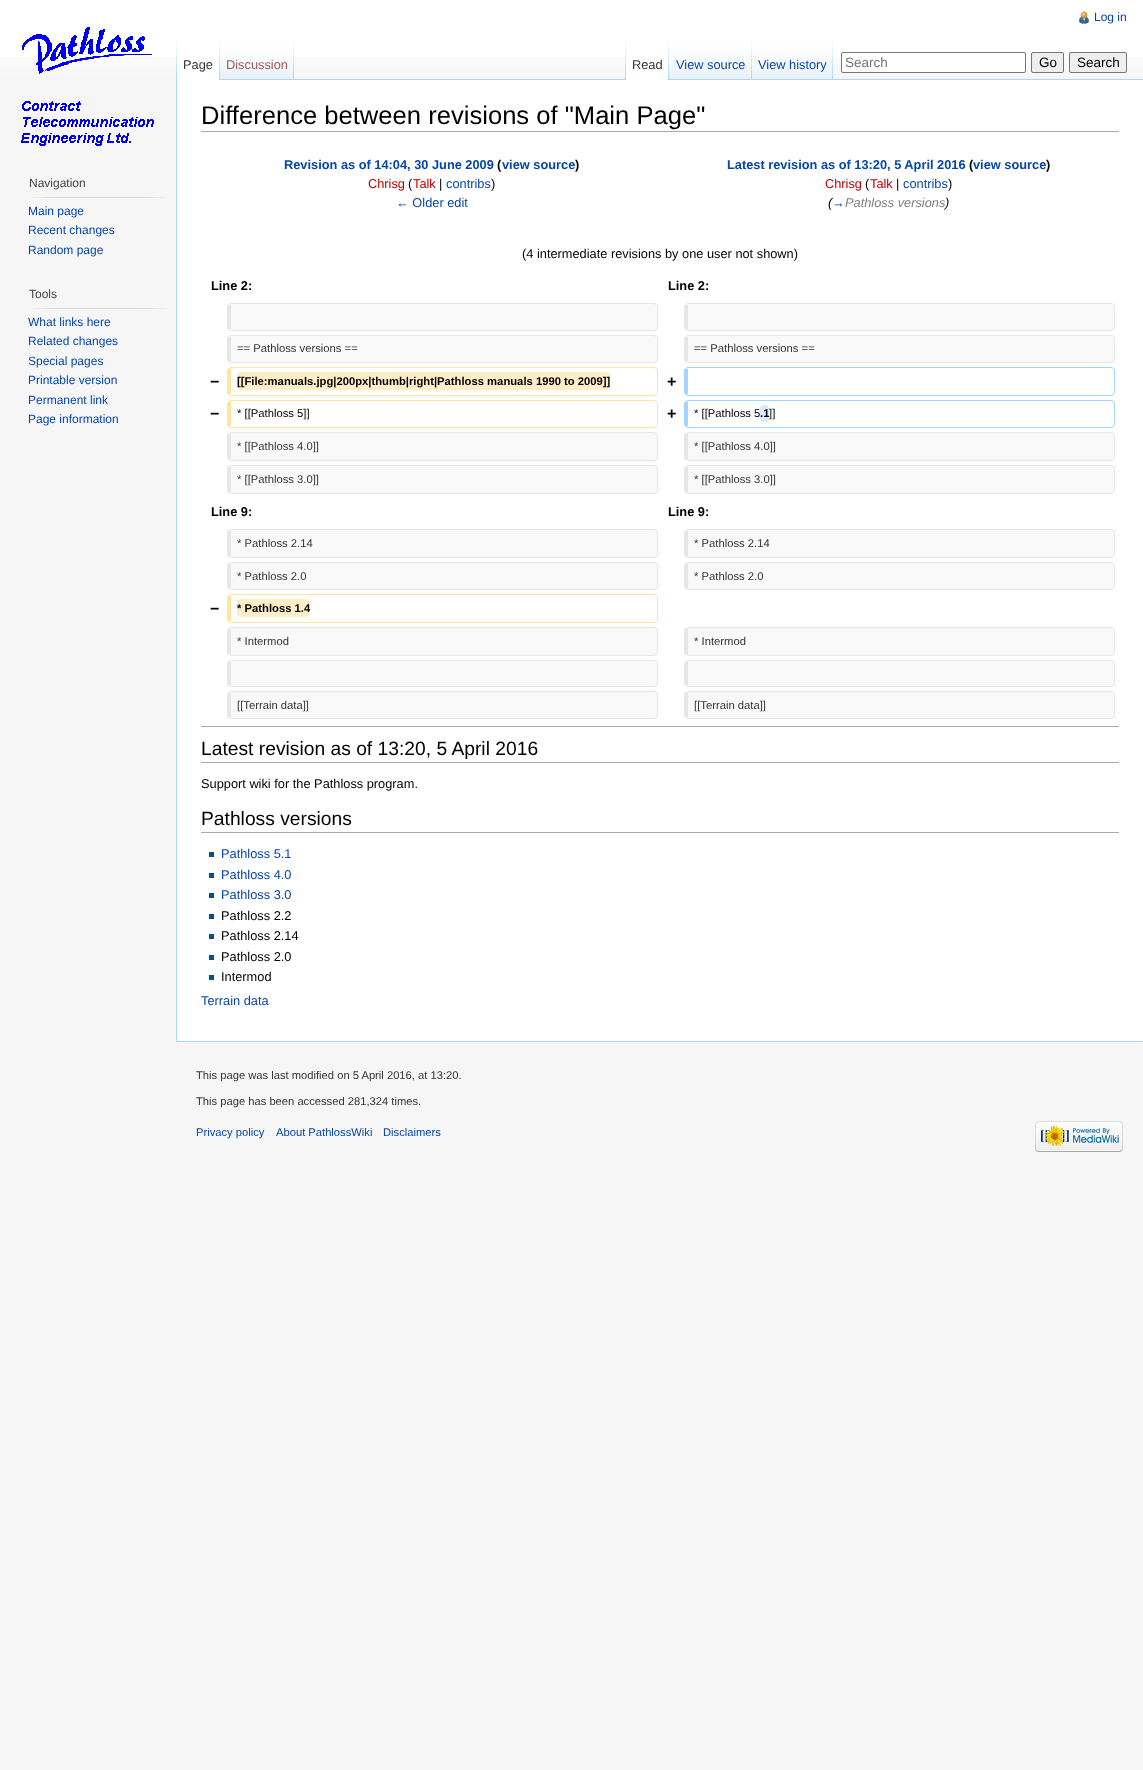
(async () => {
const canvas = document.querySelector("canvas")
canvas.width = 1143
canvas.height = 1770
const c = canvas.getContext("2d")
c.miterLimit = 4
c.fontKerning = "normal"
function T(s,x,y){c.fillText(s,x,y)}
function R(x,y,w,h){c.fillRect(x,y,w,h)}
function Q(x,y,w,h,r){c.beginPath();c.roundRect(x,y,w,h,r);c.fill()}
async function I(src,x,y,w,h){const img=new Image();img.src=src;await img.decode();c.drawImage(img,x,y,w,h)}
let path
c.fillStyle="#f6f6f6"
R(0,0,1143,1770)
c.fillStyle="#fff"
R(0,0,1143,57)
await I("1.png",0,57,1143,23)
await I("2.png",1079,11,10,13)
c.font="12px Liberation Sans"
c.fillStyle="#0645ad"
T("Log in",1094,21)
await I("3.png",176,40,1,39)
c.fillStyle="#fff"
R(177,57,42,23)
await I("4.png",219,40,1,40)
c.font="12.8px Liberation Sans"
c.fillStyle="#333"
T("Page",183,69)
await I("5.png",220,40,74,40)
await I("6.png",293,40,1,39)
c.fillStyle="#a55858"
T("Discussion",226,69)
await I("3.png",625,40,1,39)
c.fillStyle="#a7d7f9"
R(294,79,849,1)
c.fillStyle="#fff"
R(626,57,42,23)
await I("4.png",668,40,1,40)
c.fillStyle="#333"
T("Read",632,69)
await I("7.png",669,40,83,40)
await I("6.png",751,40,1,39)
c.fillStyle="#0645ad"
T("View source",676,69)
await I("8.png",752,40,81,40)
await I("6.png",832,40,1,39)
T("View history",758,69)
c.fillStyle="#fff"
c.beginPath()
c.roundRect(841.5,52.5,184,20,1.5)
c.fill()
c.strokeStyle="#767676"
c.stroke()
c.font="13.5px Liberation Sans"
c.fillStyle="#757575"
T("Search",845,67)
c.fillStyle="#efefef"
c.beginPath()
c.roundRect(1031.5,52.5,32,20,1.5)
c.fill()
c.stroke()
c.fillStyle="#000"
T("Go",1039,67)
c.fillStyle="#efefef"
c.beginPath()
c.roundRect(1069.5,52.5,57,20,1.5)
c.fill()
c.stroke()
c.fillStyle="#000"
T("Search",1077,67)
await I("9.png",21,27,133,119)
c.font="12px Liberation Sans"
c.fillStyle="#444"
T("Navigation",29,187)
await I("10.png",31,197,135,1)
c.fillStyle="#0645ad"
T("Main page",28,215)
T("Recent changes",28,234)
T("Random page",28,254)
c.fillStyle="#444"
T("Tools",29,298)
await I("10.png",31,308,135,1)
c.fillStyle="#0645ad"
T("What links here",28,326)
T("Related changes",28,345)
T("Special pages",28,365)
T("Printable version",28,384)
T("Permanent link",28,404)
T("Page information",28,423)
c.fillStyle="#fff"
R(177,80,966,961)
c.fillStyle="#a7d7f9"
R(176,1041,967,1)
R(176,79,1,963)
c.fillStyle="#aaa"
R(201,131,918,1)
c.font="25.6px Liberation Sans"
c.fillStyle="#000"
T("Difference between revisions of \"Main Page\"",201,124)
c.font="bold 12.8px Liberation Sans"
c.fillStyle="#0645ad"
T("Revision as of 14:04, 30 June 2009",284,169)
c.fillStyle="#000"
T("(",497,169)
c.fillStyle="#0645ad"
T("view source",502,169)
c.fillStyle="#000"
T(")",575,169)
c.font="12.8px Liberation Sans"
c.fillStyle="#ba0000"
T("Chrisg",368,188)
c.fillStyle="#000"
T("(",408,188)
c.fillStyle="#ba0000"
T("Talk",413,188)
c.fillStyle="#000"
T("|",439,188)
c.fillStyle="#0645ad"
T("contribs",446,188)
c.fillStyle="#000"
T(")",491,188)
c.fillStyle="#0645ad"
T("← Older edit",396,207)
c.font="bold 12.8px Liberation Sans"
T("Latest revision as of 13:20, 5 April 2016",727,169)
c.fillStyle="#000"
T("(",969,169)
c.fillStyle="#0645ad"
T("view source",973,169)
c.fillStyle="#000"
T(")",1046,169)
c.font="12.8px Liberation Sans"
c.fillStyle="#ba0000"
T("Chrisg",825,188)
c.fillStyle="#000"
T("(",865,188)
c.fillStyle="#ba0000"
T("Talk",870,188)
c.fillStyle="#000"
T("|",896,188)
c.fillStyle="#0645ad"
T("contribs",903,188)
c.fillStyle="#000"
T(")",948,188)
c.font="italic 12.8px Liberation Sans"
T("(",828,207)
c.fillStyle="#0645ad"
T("→",832,207)
c.fillStyle="#808080"
T("Pathloss versions",845,207)
c.fillStyle="#000"
T(")",945,207)
c.font="12.8px Liberation Sans"
T("(4 intermediate revisions by one user not shown)",522,258)
c.font="bold 12.8px Liberation Sans"
T("Line 2:",211,290)
T("Line 2:",668,290)
c.fillStyle="#f9f9f9"
path = new Path2D("M231 304h423c2 0 3 1 3 3v20c0 2-1 3-3 3h-423z")
c.fill(path)
c.beginPath()
c.roundRect(227.5,303.5,430,27,3.5)
c.strokeStyle="#e6e6e6"
c.stroke()
c.fillStyle="#e6e6e6"
R(228,305,3,24)
c.fillStyle="#f9f9f9"
path = new Path2D("M688 304h423c2 0 3 1 3 3v20c0 2-1 3-3 3h-423z")
c.fill(path)
c.beginPath()
c.roundRect(684.5,303.5,430,27,3.5)
c.stroke()
c.fillStyle="#e6e6e6"
R(685,305,3,24)
c.fillStyle="#f9f9f9"
path = new Path2D("M231 336h423c2 0 3 1 3 3v20c0 2-1 3-3 3h-423z")
c.fill(path)
c.beginPath()
c.roundRect(227.5,335.5,430,27,3.5)
c.stroke()
c.fillStyle="#e6e6e6"
R(228,337,3,24)
c.font="11.25px Liberation Sans"
c.fillStyle="#333"
T("== Pathloss versions ==",237,352)
c.fillStyle="#f9f9f9"
path = new Path2D("M688 336h423c2 0 3 1 3 3v20c0 2-1 3-3 3h-423z")
c.fill(path)
c.beginPath()
c.roundRect(684.5,335.5,430,27,3.5)
c.stroke()
c.fillStyle="#e6e6e6"
R(685,337,3,24)
c.fillStyle="#333"
T("== Pathloss versions ==",694,352)
c.font="bold 16px Liberation Sans"
c.fillStyle="#000"
T("−",210,387)
c.beginPath()
c.roundRect(227.5,367.5,430,28,3.5)
c.strokeStyle="#ffe49c"
c.stroke()
c.fillStyle="#ffe49c"
R(228,369,3,25)
c.fillStyle="#feeec8"
Q(237,372,373,18,4)
c.font="bold 11.25px Liberation Sans"
c.fillStyle="#000"
T("[[File:manuals.jpg|200px|thumb|right|Pathloss manuals 1990 to 2009]]",237,385)
c.font="bold 16px Liberation Sans"
T("+",667,387)
c.beginPath()
c.roundRect(684.5,367.5,430,28,3.5)
c.strokeStyle="#a3d3ff"
c.stroke()
c.fillStyle="#a3d3ff"
R(685,369,3,25)
c.fillStyle="#000"
T("−",210,419)
c.beginPath()
c.roundRect(227.5,400.5,430,27,3.5)
c.strokeStyle="#ffe49c"
c.stroke()
c.fillStyle="#ffe49c"
R(228,402,3,24)
c.font="11.25px Liberation Sans"
c.fillStyle="#000"
T("* [[Pathloss 5]]",237,417)
c.font="bold 16px Liberation Sans"
T("+",667,419)
c.beginPath()
c.roundRect(684.5,400.5,430,27,3.5)
c.strokeStyle="#a3d3ff"
c.stroke()
c.fillStyle="#a3d3ff"
R(685,402,3,24)
c.font="11.25px Liberation Sans"
c.fillStyle="#000"
T("* [[Pathloss 5",694,417)
c.fillStyle="#d8ecff"
Q(760,405,9,17,4)
c.font="bold 11.25px Liberation Sans"
c.fillStyle="#000"
T(".1",760,417)
c.font="11.25px Liberation Sans"
T("]]",769,417)
c.fillStyle="#f9f9f9"
path = new Path2D("M231 433h423c2 0 3 1 3 3v21c0 2-1 3-3 3h-423z")
c.fill(path)
c.beginPath()
c.roundRect(227.5,432.5,430,28,3.5)
c.strokeStyle="#e6e6e6"
c.stroke()
c.fillStyle="#e6e6e6"
R(228,434,3,25)
c.fillStyle="#333"
T("* [[Pathloss 4.0]]",237,450)
c.fillStyle="#f9f9f9"
path = new Path2D("M688 433h423c2 0 3 1 3 3v21c0 2-1 3-3 3h-423z")
c.fill(path)
c.beginPath()
c.roundRect(684.5,432.5,430,28,3.5)
c.stroke()
c.fillStyle="#e6e6e6"
R(685,434,3,25)
c.fillStyle="#333"
T("* [[Pathloss 4.0]]",694,450)
c.fillStyle="#f9f9f9"
path = new Path2D("M231 466h423c2 0 3 1 3 3v21c0 2-1 3-3 3h-423z")
c.fill(path)
c.beginPath()
c.roundRect(227.5,465.5,430,28,3.5)
c.stroke()
c.fillStyle="#e6e6e6"
R(228,467,3,25)
c.fillStyle="#333"
T("* [[Pathloss 3.0]]",237,483)
c.fillStyle="#f9f9f9"
path = new Path2D("M688 466h423c2 0 3 1 3 3v21c0 2-1 3-3 3h-423z")
c.fill(path)
c.beginPath()
c.roundRect(684.5,465.5,430,28,3.5)
c.stroke()
c.fillStyle="#e6e6e6"
R(685,467,3,25)
c.fillStyle="#333"
T("* [[Pathloss 3.0]]",694,483)
c.font="bold 12.8px Liberation Sans"
c.fillStyle="#000"
T("Line 9:",211,516)
T("Line 9:",668,516)
c.fillStyle="#f9f9f9"
path = new Path2D("M231 530h423c2 0 3 1 3 3v21c0 2-1 3-3 3h-423z")
c.fill(path)
c.beginPath()
c.roundRect(227.5,529.5,430,28,3.5)
c.stroke()
c.fillStyle="#e6e6e6"
R(228,531,3,25)
c.font="11.25px Liberation Sans"
c.fillStyle="#333"
T("* Pathloss 2.14",237,547)
c.fillStyle="#f9f9f9"
path = new Path2D("M688 530h423c2 0 3 1 3 3v21c0 2-1 3-3 3h-423z")
c.fill(path)
c.beginPath()
c.roundRect(684.5,529.5,430,28,3.5)
c.stroke()
c.fillStyle="#e6e6e6"
R(685,531,3,25)
c.fillStyle="#333"
T("* Pathloss 2.14",694,547)
c.fillStyle="#f9f9f9"
path = new Path2D("M231 563h423c2 0 3 1 3 3v20c0 2-1 3-3 3h-423z")
c.fill(path)
c.beginPath()
c.roundRect(227.5,562.5,430,27,3.5)
c.stroke()
c.fillStyle="#e6e6e6"
R(228,564,3,24)
c.fillStyle="#333"
T("* Pathloss 2.0",237,580)
c.fillStyle="#f9f9f9"
path = new Path2D("M688 563h423c2 0 3 1 3 3v20c0 2-1 3-3 3h-423z")
c.fill(path)
c.beginPath()
c.roundRect(684.5,562.5,430,27,3.5)
c.stroke()
c.fillStyle="#e6e6e6"
R(685,564,3,24)
c.fillStyle="#333"
T("* Pathloss 2.0",694,580)
c.font="bold 16px Liberation Sans"
c.fillStyle="#000"
T("−",210,614)
c.beginPath()
c.roundRect(227.5,594.5,430,28,3.5)
c.strokeStyle="#ffe49c"
c.stroke()
c.fillStyle="#ffe49c"
R(228,596,3,25)
c.fillStyle="#feeec8"
Q(237,599,73,18,4)
c.font="bold 11.25px Liberation Sans"
c.fillStyle="#000"
T("* Pathloss 1.4",237,612)
c.fillStyle="#f9f9f9"
path = new Path2D("M231 628h423c2 0 3 1 3 3v21c0 2-1 3-3 3h-423z")
c.fill(path)
c.beginPath()
c.roundRect(227.5,627.5,430,28,3.5)
c.strokeStyle="#e6e6e6"
c.stroke()
c.fillStyle="#e6e6e6"
R(228,629,3,25)
c.font="11.25px Liberation Sans"
c.fillStyle="#333"
T("* Intermod",237,645)
c.fillStyle="#f9f9f9"
path = new Path2D("M688 628h423c2 0 3 1 3 3v21c0 2-1 3-3 3h-423z")
c.fill(path)
c.beginPath()
c.roundRect(684.5,627.5,430,28,3.5)
c.stroke()
c.fillStyle="#e6e6e6"
R(685,629,3,25)
c.fillStyle="#333"
T("* Intermod",694,645)
c.fillStyle="#f9f9f9"
path = new Path2D("M231 661h423c2 0 3 1 3 3v19c0 2-1 3-3 3h-423z")
c.fill(path)
c.beginPath()
c.roundRect(227.5,660.5,430,26,3.5)
c.stroke()
c.fillStyle="#e6e6e6"
R(228,662,3,23)
c.fillStyle="#f9f9f9"
path = new Path2D("M688 661h423c2 0 3 1 3 3v19c0 2-1 3-3 3h-423z")
c.fill(path)
c.beginPath()
c.roundRect(684.5,660.5,430,26,3.5)
c.stroke()
c.fillStyle="#e6e6e6"
R(685,662,3,23)
c.fillStyle="#f9f9f9"
path = new Path2D("M231 692h423c2 0 3 1 3 3v20c0 2-1 3-3 3h-423z")
c.fill(path)
c.beginPath()
c.roundRect(227.5,691.5,430,27,3.5)
c.stroke()
c.fillStyle="#e6e6e6"
R(228,693,3,24)
c.fillStyle="#333"
T("[[Terrain data]]",237,709)
c.fillStyle="#f9f9f9"
path = new Path2D("M688 692h423c2 0 3 1 3 3v20c0 2-1 3-3 3h-423z")
c.fill(path)
c.beginPath()
c.roundRect(684.5,691.5,430,27,3.5)
c.stroke()
c.fillStyle="#e6e6e6"
R(685,693,3,24)
c.fillStyle="#333"
T("[[Terrain data]]",694,709)
c.fillStyle="#aaa"
R(201,726,918,1)
R(201,762,918,1)
c.font="19.25px Liberation Sans"
c.fillStyle="#000"
T("Latest revision as of 13:20, 5 April 2016",201,755)
c.font="12.8px Liberation Sans"
T("Support wiki for the Pathloss program.",201,788)
c.fillStyle="#aaa"
R(201,832,918,1)
c.font="19.25px Liberation Sans"
c.fillStyle="#000"
T("Pathloss versions",201,825)
c.fillStyle="#00528c"
R(209,852,5,5)
c.font="12.8px Liberation Sans"
c.fillStyle="#0645ad"
T("Pathloss 5.1",221,858)
c.fillStyle="#00528c"
R(209,873,5,5)
c.fillStyle="#0645ad"
T("Pathloss 4.0",221,879)
c.fillStyle="#00528c"
R(209,893,5,5)
c.fillStyle="#0645ad"
T("Pathloss 3.0",221,899)
c.fillStyle="#00528c"
R(209,914,5,5)
c.fillStyle="#000"
T("Pathloss 2.2",221,920)
c.fillStyle="#00528c"
R(209,934,5,5)
c.fillStyle="#000"
T("Pathloss 2.14",221,940)
c.fillStyle="#00528c"
R(209,955,5,5)
c.fillStyle="#000"
T("Pathloss 2.0",221,961)
c.fillStyle="#00528c"
R(209,975,5,5)
c.fillStyle="#000"
T("Intermod",221,981)
c.fillStyle="#0645ad"
T("Terrain data",201,1005)
c.font="11.2px Liberation Sans"
c.fillStyle="#333"
T("This page was last modified on 5 April 2016, at 13:20.",196,1079)
T("This page has been accessed 281,324 times.",196,1105)
c.fillStyle="#0645ad"
T("Privacy policy",196,1136)
T("About PathlossWiki",276,1136)
T("Disclaimers",383,1136)
await I("11.png",1035,1121,88,31)
})()
